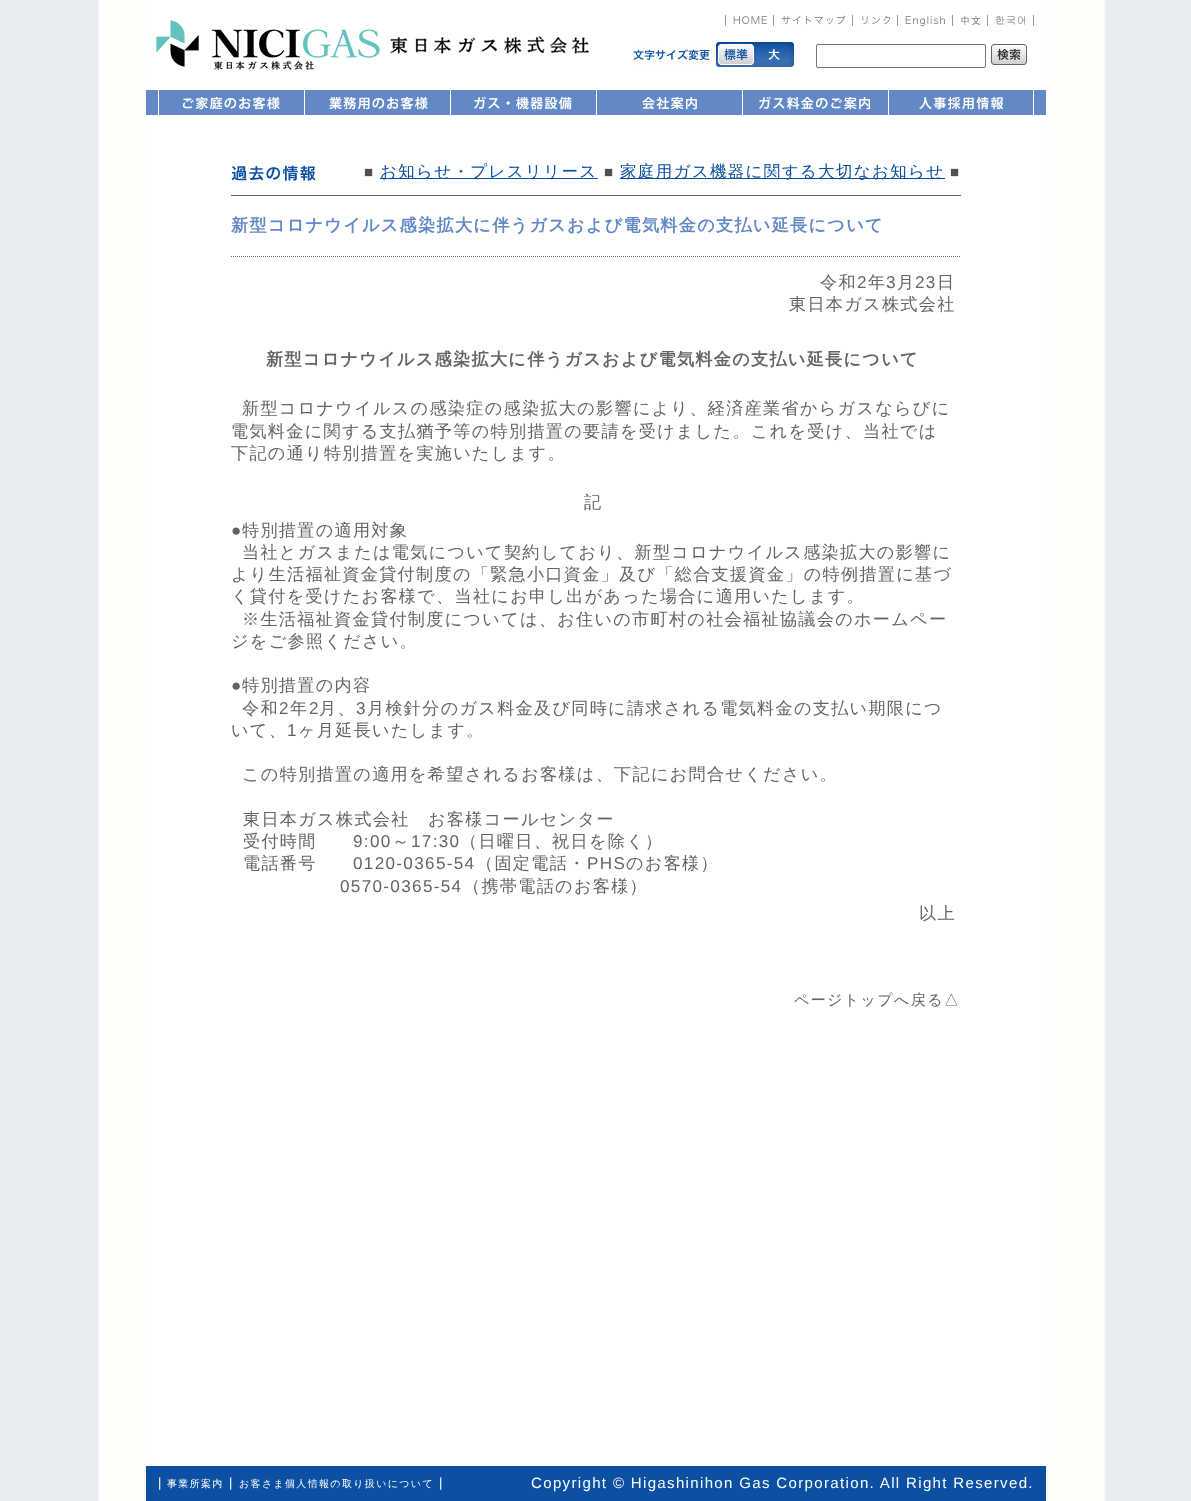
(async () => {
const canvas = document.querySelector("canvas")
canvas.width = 1191
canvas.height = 1501
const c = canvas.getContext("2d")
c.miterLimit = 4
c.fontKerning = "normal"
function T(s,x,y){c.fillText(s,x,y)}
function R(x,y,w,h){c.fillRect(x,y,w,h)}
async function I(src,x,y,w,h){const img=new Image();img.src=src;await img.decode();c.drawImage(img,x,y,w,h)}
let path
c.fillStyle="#fff"
R(0,0,1191,1501)
await I("1.png",0,0,1191,1501)
R(146,0,900,1466)
await I("2.png",156,20,433,50)
await I("3.png",633,42,161,25)
await I("4.png",716,42,38,25)
await I("5.png",725,15,42,11)
await I("6.png",773,15,73,11)
await I("7.png",852,15,39,11)
await I("8.png",897,15,48,11)
await I("9.png",952,15,29,11)
await I("10.png",987,15,47,11)
c.beginPath()
c.roundRect(816.5,44.5,169,23,1.5)
c.strokeStyle="#767676"
c.stroke()
await I("11.png",991,44,36,21)
c.fillStyle="#6289c6"
R(146,90,900,25)
await I("12.png",158,90,122,25)
await I("13.png",304,90,124,25)
await I("14.png",450,90,122,25)
await I("15.png",596,90,101,25)
await I("16.png",742,90,128,25)
await I("17.png",888,90,146,25)
await I("18.png",231,165,85,16)
c.letterSpacing="1.33px"
c.font="15.05px Liberation Sans"
c.fillStyle="#505050"
T("■",364,177)
c.fillStyle="#0b50a2"
R(380,178,218,1)
c.font="500 16.5px WenQuanYi Zen Hei"
T("お知らせ・プレスリリース",380,177)
c.font="15.05px Liberation Sans"
c.fillStyle="#505050"
T("■",604,177)
c.fillStyle="#0b50a2"
R(620,178,325,1)
c.font="500 16.5px WenQuanYi Zen Hei"
T("家庭用ガス機器に関する大切なお知らせ",620,177)
c.font="15.05px Liberation Sans"
c.fillStyle="#505050"
T("■",950,177)
c.fillStyle="#666"
R(231,195,730,1)
path = new Path2D("M231 256.5h730")
c.strokeStyle="#666"
c.setLineDash([1,1])
c.stroke(path)
c.font="bold 17.1px WenQuanYi Zen Hei"
c.fillStyle="#6289c6"
T("新型コロナウイルス感染拡大に伴うガスおよび電気料金の支払い延長について",231,231)
c.font="500 17.1px WenQuanYi Zen Hei"
c.fillStyle="#646464"
T("令和",820,288)
c.font="17.1px Liberation Sans"
T("2",857,288)
c.font="500 17.1px WenQuanYi Zen Hei"
T("年",868,288)
c.font="17.1px Liberation Sans"
T("3",886,288)
c.font="500 17.1px WenQuanYi Zen Hei"
T("月",897,288)
c.font="17.1px Liberation Sans"
T("23",915,288)
c.font="500 17.1px WenQuanYi Zen Hei"
T("日",937,288)
T("東日本ガス株式会社",789,310)
c.font="bold 17.1px WenQuanYi Zen Hei"
T("新型コロナウイルス感染拡大に伴うガスおよび電気料金の支払い延長について",266,365)
c.font="500 17.1px WenQuanYi Zen Hei"
T("新型コロナウイルスの感染症の感染拡大の影響により、経済産業省からガスならびに",242,414)
T("電気料金に関する支払猶予等の特別措置の要請を受けました。これを受け、当社では",231,437)
T("下記の通り特別措置を実施いたします。",231,459)
T("記",584,508)
c.font="17.1px Liberation Sans"
T("●",231,536)
c.font="500 17.1px WenQuanYi Zen Hei"
T("特別措置の適用対象",242,536)
T("当社とガスまたは電気について契約しており、新型コロナウイルス感染拡大の影響に",242,558)
T("より生活福祉資金貸付制度の「緊急小口資金」及び「総合支援資金」の特例措置に基づ",231,580)
T("く貸付を受けたお客様で、当社にお申し出があった場合に適用いたします。",231,602)
T("※生活福祉資金貸付制度については、お住いの市町村の社会福祉協議会のホームペー",242,625)
T("ジをご参照ください。",231,647)
c.font="17.1px Liberation Sans"
T("●",231,691)
c.font="500 17.1px WenQuanYi Zen Hei"
T("特別措置の内容",242,691)
T("令和",242,714)
c.font="17.1px Liberation Sans"
T("2",279,714)
c.font="500 17.1px WenQuanYi Zen Hei"
T("年",290,714)
c.font="17.1px Liberation Sans"
T("2",309,714)
c.font="500 17.1px WenQuanYi Zen Hei"
T("月、",319,714)
c.font="17.1px Liberation Sans"
T("3",356,714)
c.font="500 17.1px WenQuanYi Zen Hei"
T("月検針分のガス料金及び同時に請求される電気料金の支払い期限につ",367,714)
T("いて、",231,736)
c.font="17.1px Liberation Sans"
T("1",287,736)
c.font="500 17.1px WenQuanYi Zen Hei"
T("ヶ月延長いたします。",298,736)
T("この特別措置の適用を希望されるお客様は、下記にお問合せください。",242,780)
T("東日本ガス株式会社　お客様コールセンター",243,825)
T("受付時間",243,847)
c.font="17.1px Liberation Sans"
T("9:00",353,847)
c.font="500 17.1px WenQuanYi Zen Hei"
T("～",392,847)
c.font="17.1px Liberation Sans"
T("17:30",411,847)
c.font="500 17.1px WenQuanYi Zen Hei"
T("（日曜日、祝日を除く）",460,847)
T("電話番号",243,869)
c.font="17.1px Liberation Sans"
T("0120-0365-54",353,869)
c.font="500 17.1px WenQuanYi Zen Hei"
T("（固定電話・",476,869)
c.font="17.1px Liberation Sans"
T("PHS",587,869)
c.font="500 17.1px WenQuanYi Zen Hei"
T("のお客様）",626,869)
c.font="17.1px Liberation Sans"
T("0570-0365-54",340,892)
c.font="500 17.1px WenQuanYi Zen Hei"
T("（携帯電話のお客様）",463,892)
T("以上",919,919)
c.font="500 15.05px WenQuanYi Zen Hei"
T("ページトップへ戻る△",794,1005)
c.fillStyle="#0b50a2"
R(146,1466,900,35)
c.font="13px Liberation Sans"
c.fillStyle="#fff"
T("|",158,1487)
c.font="500 10px WenQuanYi Zen Hei"
T("事業所案内",167,1487)
c.font="13px Liberation Sans"
T("|",229,1487)
c.font="500 10px WenQuanYi Zen Hei"
T("お客さま個人情報の取り扱いについて",239,1487)
c.font="13px Liberation Sans"
T("|",439,1487)
c.font="15.05px Liberation Sans"
T("Copyright © Higashinihon Gas Corporation. All Right Reserved.",531,1488)
})()
